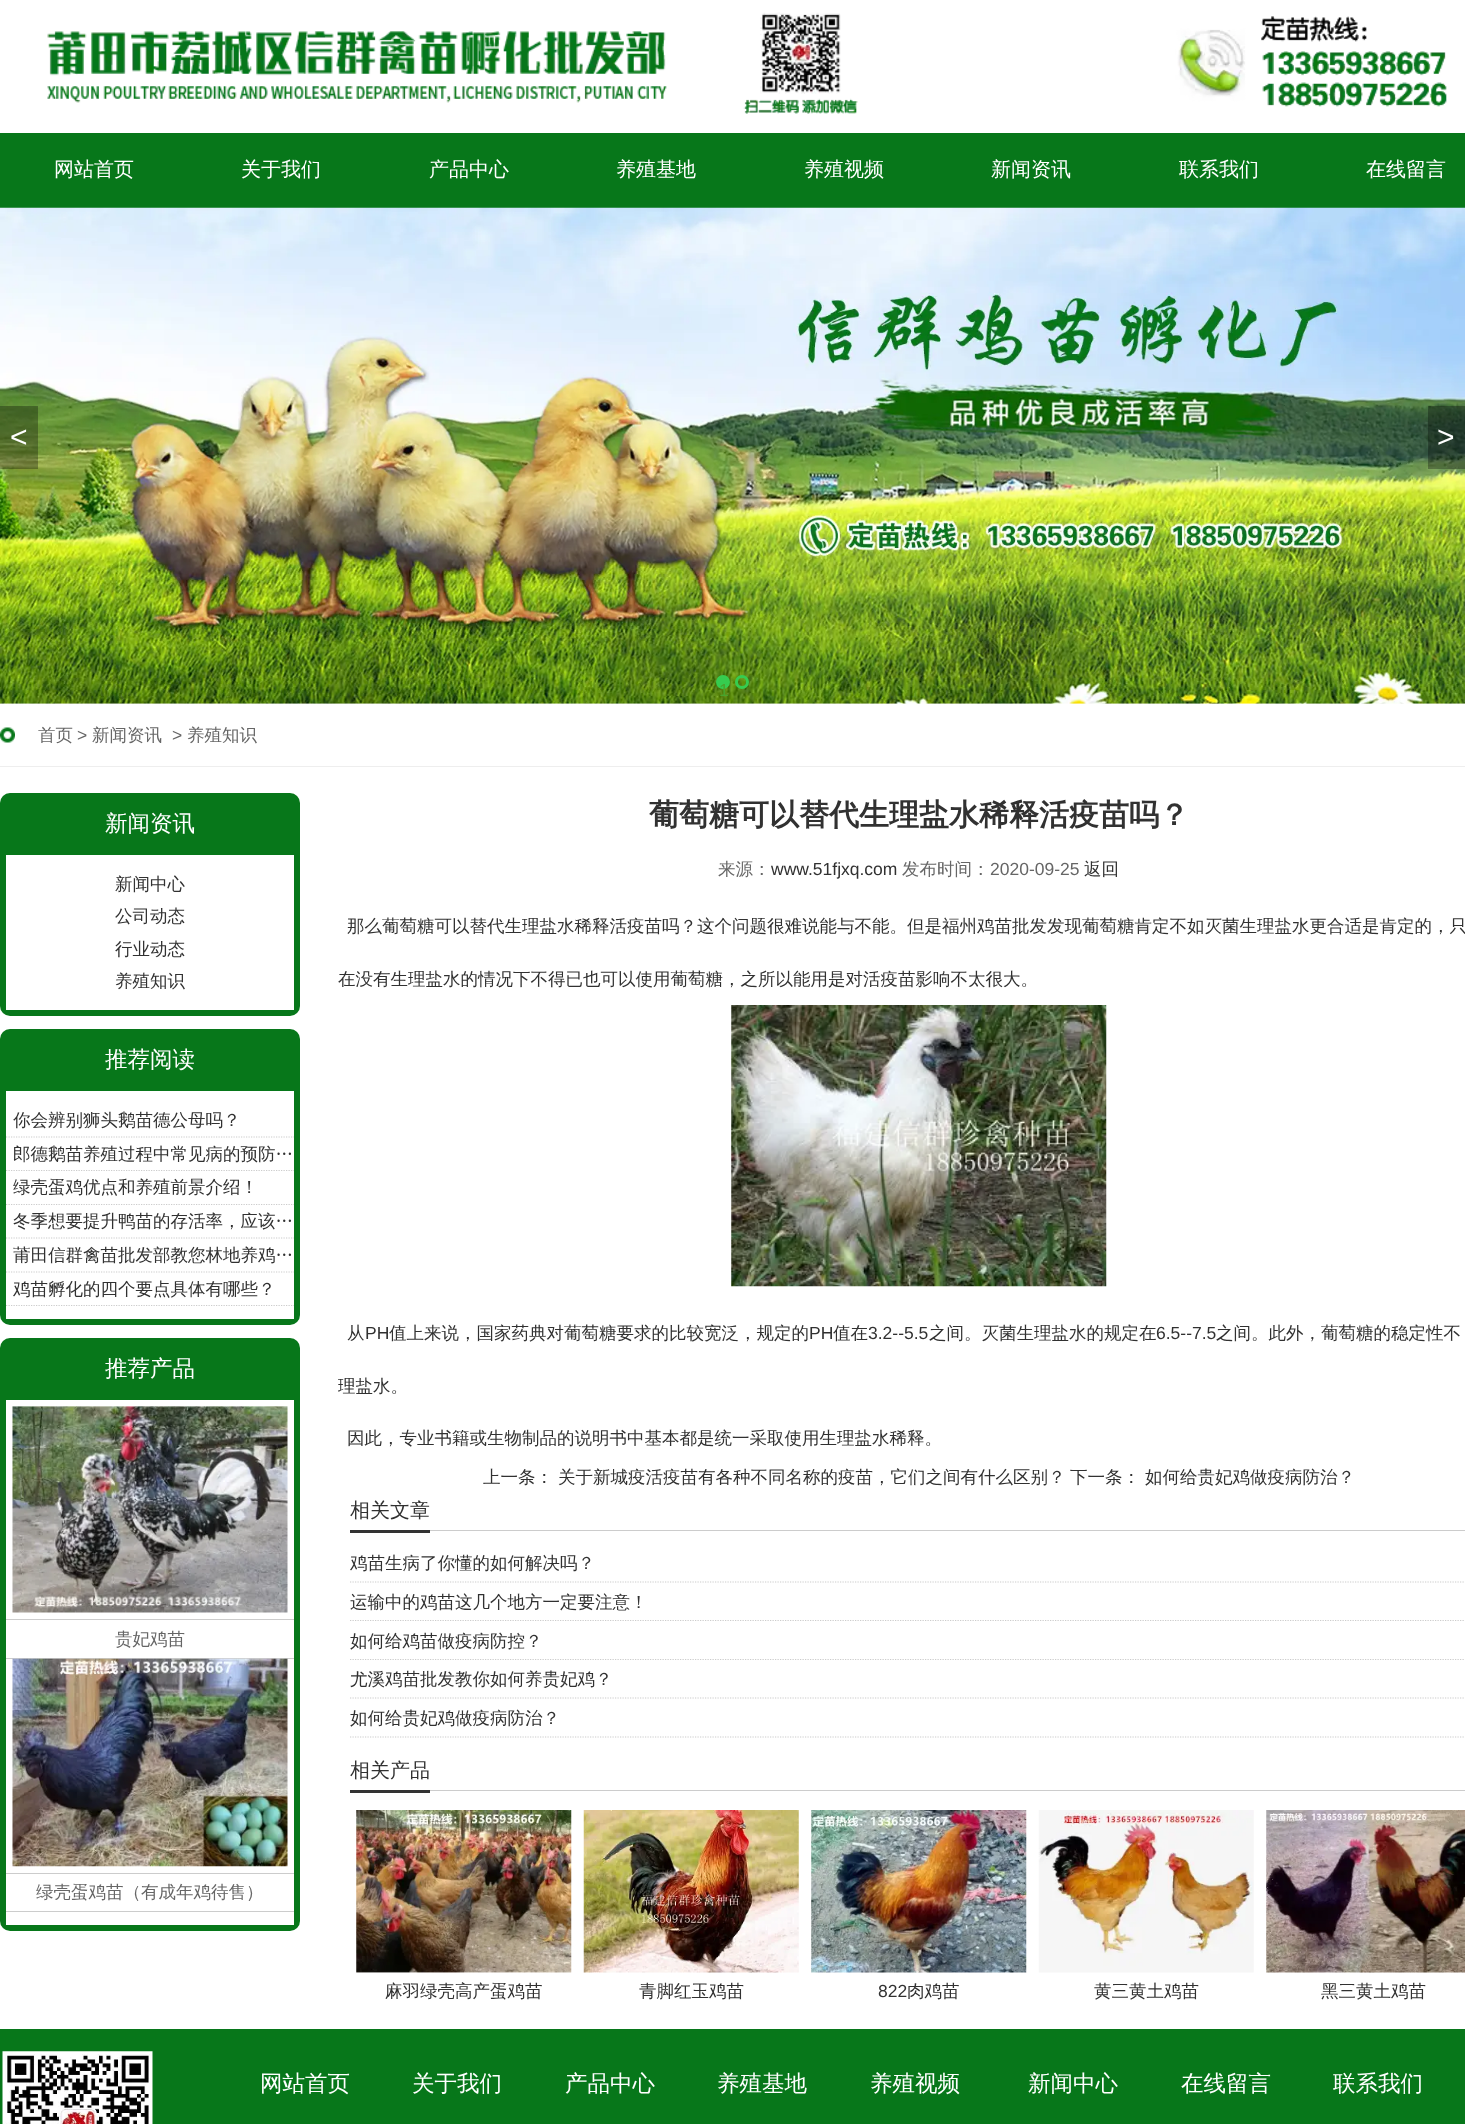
(async () => {
const canvas = document.querySelector("canvas")
canvas.width = 1465
canvas.height = 2124
const c = canvas.getContext("2d")
c.miterLimit = 4
c.fontKerning = "normal"
function T(s,x,y){c.fillText(s,x,y)}
function R(x,y,w,h){c.fillRect(x,y,w,h)}
function Q(x,y,w,h,r){c.beginPath();c.roundRect(x,y,w,h,r);c.fill()}
async function I(src,x,y,w,h){const img=new Image();img.src=src;await img.decode();c.drawImage(img,x,y,w,h)}
let path
c.fillStyle="#fff"
R(0,0,1465,2124)
await I("1.png",47,12,1400,102)
c.fillStyle="#07771a"
R(0,133,1465,75)
c.font="500 20px WenQuanYi Zen Hei"
c.fillStyle="#fff"
T("网站首页",54,176)
T("关于我们",241,176)
T("产品中心",429,176)
T("养殖基地",616,176)
T("养殖视频",804,176)
T("新闻资讯",991,176)
T("联系我们",1179,176)
T("在线留言",1366,176)
await I("2.png",0,207,1465,497)
c.fillStyle="#0000004d"
R(0,406,38,63)
c.font="30px Liberation Sans"
c.fillStyle="#fff"
T("<",10,447)
c.fillStyle="#0000004d"
R(1428,406,37,63)
c.fillStyle="#fff"
T(">",1437,447)
c.fillStyle="#36cc4f"
c.beginPath()
c.arc(723,682,5.5,0,7)
c.fill()
c.strokeStyle="#36cc4f"
c.lineWidth=3
c.stroke()
c.font="17.5px Liberation Sans"
c.fillStyle="#49a42d"
T("1",719,696)
c.beginPath()
c.arc(742,682,5.5,0,7)
c.stroke()
await I("3.png",0,727,15,16)
c.fillStyle="#eee"
R(0,766,1465,1)
c.font="500 17.5px WenQuanYi Zen Hei"
c.fillStyle="#666"
T("首页",38,741)
c.font="17.5px Liberation Sans"
T(">",77,741)
c.font="500 17.5px WenQuanYi Zen Hei"
T("新闻资讯",92,741)
c.font="17.5px Liberation Sans"
T(">",172,741)
c.font="500 17.5px WenQuanYi Zen Hei"
T("养殖知识",187,741)
c.fillStyle="#07771a"
Q(0,793,300,223,10)
c.font="500 22.5px WenQuanYi Zen Hei"
c.fillStyle="#fff"
T("新闻资讯",105,831)
R(6,855,288,155)
c.font="500 17.5px WenQuanYi Zen Hei"
c.fillStyle="#313131"
T("新闻中心",115,890)
T("公司动态",115,922)
T("行业动态",115,955)
T("养殖知识",115,987)
c.fillStyle="#07771a"
Q(0,1029,300,296,10)
c.font="500 22.5px WenQuanYi Zen Hei"
c.fillStyle="#fff"
T("推荐阅读",105,1067)
R(6,1091,288,228)
path = new Path2D("M6 1137h288")
c.strokeStyle="#ccc"
c.lineWidth=1.2
c.setLineDash([1.25,1.25])
c.stroke(path)
c.font="500 17.5px WenQuanYi Zen Hei"
c.fillStyle="#313131"
T("你会辨别狮头鹅苗德公母吗？",13,1126)
path = new Path2D("M6 1170.5h288")
c.stroke(path)
T("郎德鹅苗养殖过程中常见病的预防…",13,1160)
path = new Path2D("M6 1204.5h288")
c.stroke(path)
T("绿壳蛋鸡优点和养殖前景介绍！",13,1193)
path = new Path2D("M6 1238h288")
c.stroke(path)
T("冬季想要提升鸭苗的存活率，应该…",13,1227)
path = new Path2D("M6 1272h288")
c.stroke(path)
T("莆田信群禽苗批发部教您林地养鸡…",13,1261)
path = new Path2D("M6 1305.5h288")
c.stroke(path)
T("鸡苗孵化的四个要点具体有哪些？",13,1295)
c.fillStyle="#07771a"
Q(0,1338,300,593,10)
c.font="500 22.5px WenQuanYi Zen Hei"
c.fillStyle="#fff"
T("推荐产品",105,1376)
R(6,1400,288,525)
await I("4.png",12,1406,276,207)
c.fillStyle="#ccc"
R(6,1619,288,1)
R(6,1658,288,1)
c.font="500 17.5px WenQuanYi Zen Hei"
c.fillStyle="#666"
T("贵妃鸡苗",115,1645)
await I("5.png",12,1658,276,209)
c.fillStyle="#ccc"
R(6,1873,288,1)
R(6,1911,288,1)
c.fillStyle="#666"
T("绿壳蛋鸡苗（有成年鸡待售）",36,1898)
c.font="bold 30px WenQuanYi Zen Hei"
c.fillStyle="#313131"
T("葡萄糖可以替代生理盐水稀释活疫苗吗？",649,825)
c.font="500 17.5px WenQuanYi Zen Hei"
c.fillStyle="#666"
T("来源：",718,875)
c.font="17.5px Liberation Sans"
c.fillStyle="#313131"
T("www.51fjxq.com",771,875)
c.font="500 17.5px WenQuanYi Zen Hei"
c.fillStyle="#666"
T("发布时间：",902,875)
c.font="17.5px Liberation Sans"
T("2020-09-25",990,875)
c.font="500 17.5px WenQuanYi Zen Hei"
c.fillStyle="#313131"
T("返回",1084,875)
T("那么葡萄糖可以替代生理盐水稀释活疫苗吗？这个问题很难说能与不能。但是福州鸡苗批发发现葡萄糖肯定不如灭菌生理盐水更合适是肯定的，只",347,932)
T("在没有生理盐水的情况下不得已也可以使用葡萄糖，之所以能用是对活疫苗影响不太很大。",338,985)
await I("6.png",731,1005,376,282)
T("从",347,1339)
c.font="17.5px Liberation Sans"
T("PH",365,1339)
c.font="500 17.5px WenQuanYi Zen Hei"
T("值上来说，国家药典对葡萄糖要求的比较宽泛，规定的",389,1339)
c.font="17.5px Liberation Sans"
T("PH",809,1339)
c.font="500 17.5px WenQuanYi Zen Hei"
T("值在",833,1339)
c.font="17.5px Liberation Sans"
T("3.2--5.5",868,1339)
c.font="500 17.5px WenQuanYi Zen Hei"
T("之间。灭菌生理盐水的规定在",929,1339)
c.font="17.5px Liberation Sans"
T("6.5--7.5",1156,1339)
c.font="500 17.5px WenQuanYi Zen Hei"
T("之间。此外，葡萄糖的稳定性不",1216,1339)
c.save()
c.beginPath()
c.rect(338,793,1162,1236)
c.clip()
T("理盐水。",338,1392)
c.restore()
T("因此，专业书籍或生物制品的说明书中基本都是统一采取使用生理盐水稀释。",347,1444)
T("上一条：",483,1483)
T("关于新城疫活疫苗有各种不同名称的疫苗，它们之间有什么区别？",558,1483)
T("下一条：",1070,1483)
T("如何给贵妃鸡做疫病防治？",1145,1483)
c.fillStyle="#ccc"
R(430,1530,1035,1)
c.fillStyle="#333"
R(350,1530,80,3)
c.font="500 20px WenQuanYi Zen Hei"
c.fillStyle="#313131"
T("相关文章",350,1517)
path = new Path2D("M350 1582h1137.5")
c.stroke(path)
c.font="500 17.5px WenQuanYi Zen Hei"
T("鸡苗生病了你懂的如何解决吗？",350,1569)
path = new Path2D("M350 1620.5h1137.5")
c.stroke(path)
T("运输中的鸡苗这几个地方一定要注意！",350,1608)
path = new Path2D("M350 1659.5h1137.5")
c.stroke(path)
T("如何给鸡苗做疫病防控？",350,1647)
path = new Path2D("M350 1698h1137.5")
c.stroke(path)
T("尤溪鸡苗批发教你如何养贵妃鸡？",350,1685)
path = new Path2D("M350 1737h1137.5")
c.stroke(path)
T("如何给贵妃鸡做疫病防治？",350,1724)
c.fillStyle="#ccc"
R(430,1790,1035,1)
c.fillStyle="#333"
R(350,1790,80,3)
c.font="500 20px WenQuanYi Zen Hei"
c.fillStyle="#313131"
T("相关产品",350,1777)
await I("7.png",356,1810,216,163)
c.font="500 17.5px WenQuanYi Zen Hei"
T("麻羽绿壳高产蛋鸡苗",385,1997)
await I("8.png",583,1810,216,163)
T("青脚红玉鸡苗",639,1997)
await I("9.png",811,1810,216,163)
c.font="17.5px Liberation Sans"
T("822",878,1997)
c.font="500 17.5px WenQuanYi Zen Hei"
T("肉鸡苗",907,1997)
await I("10.png",1038,1810,216,163)
T("黄三黄土鸡苗",1094,1997)
await I("11.png",1266,1810,199,163)
T("黑三黄土鸡苗",1321,1997)
c.fillStyle="#07771a"
R(0,2029,1465,95)
await I("12.png",2,2051,151,73)
c.font="500 22.5px WenQuanYi Zen Hei"
c.fillStyle="#fff"
T("网站首页",260,2091)
T("关于我们",412,2091)
T("产品中心",565,2091)
T("养殖基地",717,2091)
T("养殖视频",870,2091)
T("新闻中心",1028,2091)
T("在线留言",1181,2091)
T("联系我们",1333,2091)
})()
